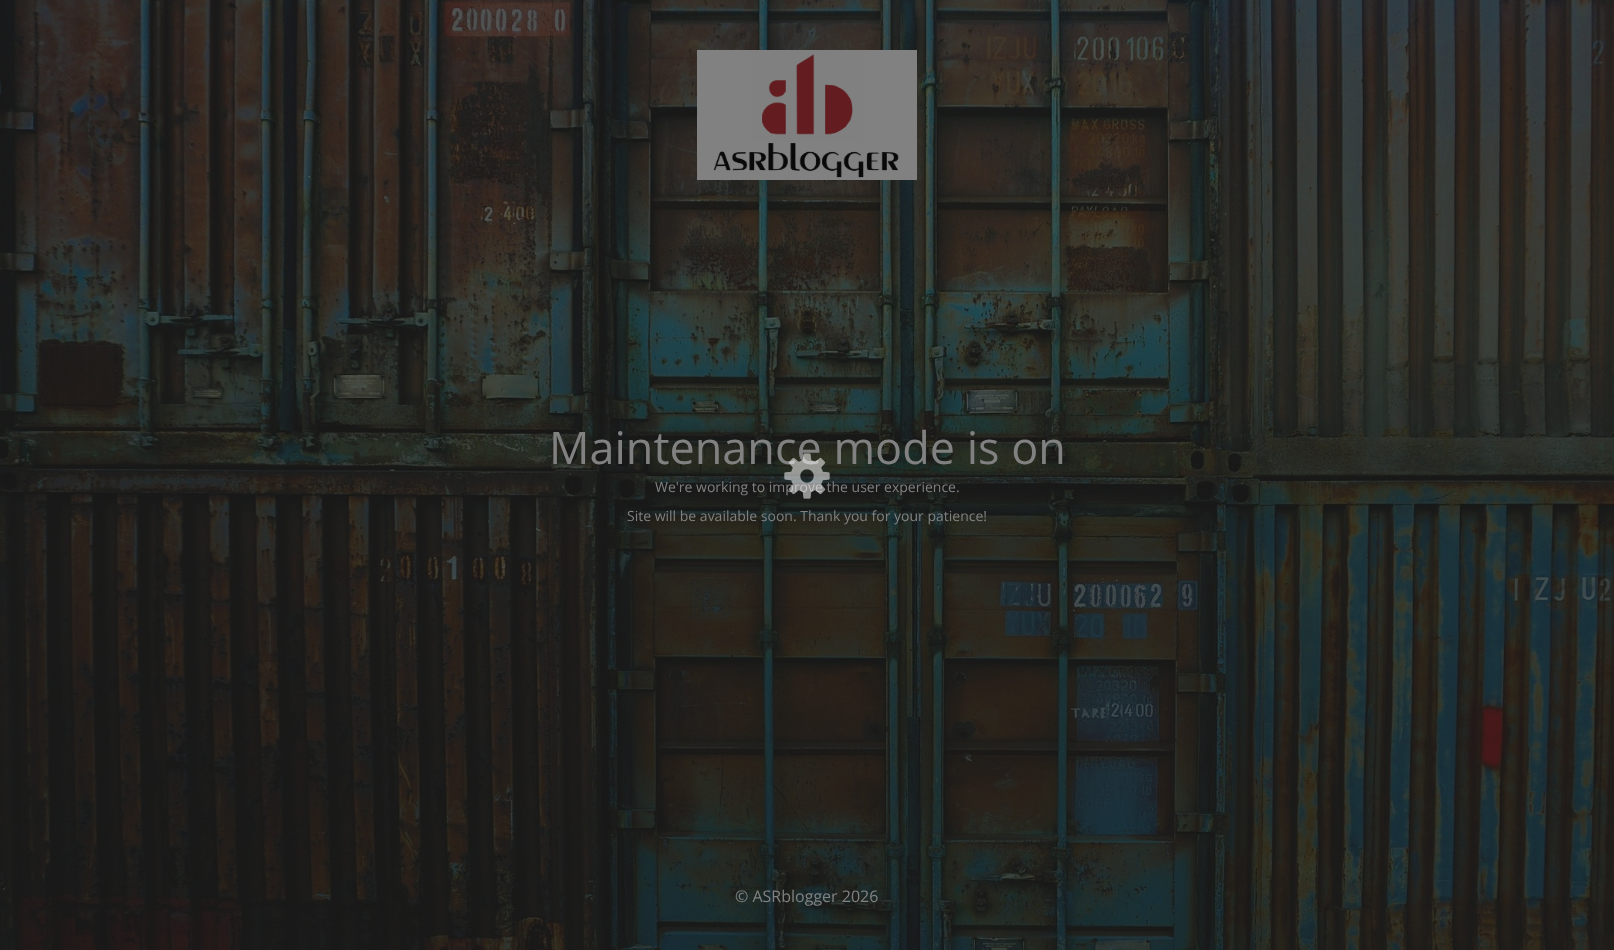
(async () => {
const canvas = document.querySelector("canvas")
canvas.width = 1614
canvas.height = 950
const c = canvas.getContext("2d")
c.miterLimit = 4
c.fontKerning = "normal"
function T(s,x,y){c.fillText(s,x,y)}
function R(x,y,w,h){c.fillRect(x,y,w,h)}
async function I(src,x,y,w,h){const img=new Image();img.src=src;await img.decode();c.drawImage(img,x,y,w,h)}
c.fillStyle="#fff"
R(0,0,1614,950)
await I("1.png",0,0,1614,950)
await I("2.png",697,50,220,130)
c.font="45px Open Sans"
c.fillStyle="#818181"
T("Maintenance mode is on",549,464)
c.font="14px Open Sans"
T("We're working to improve the user experience.",655,492)
T("Site will be available soon. Thank you for your patience!",627,521)
await I("3.png",784,453,46,46)
c.font="16px Open Sans"
T("© ASRblogger 2026",735,902)
})()
